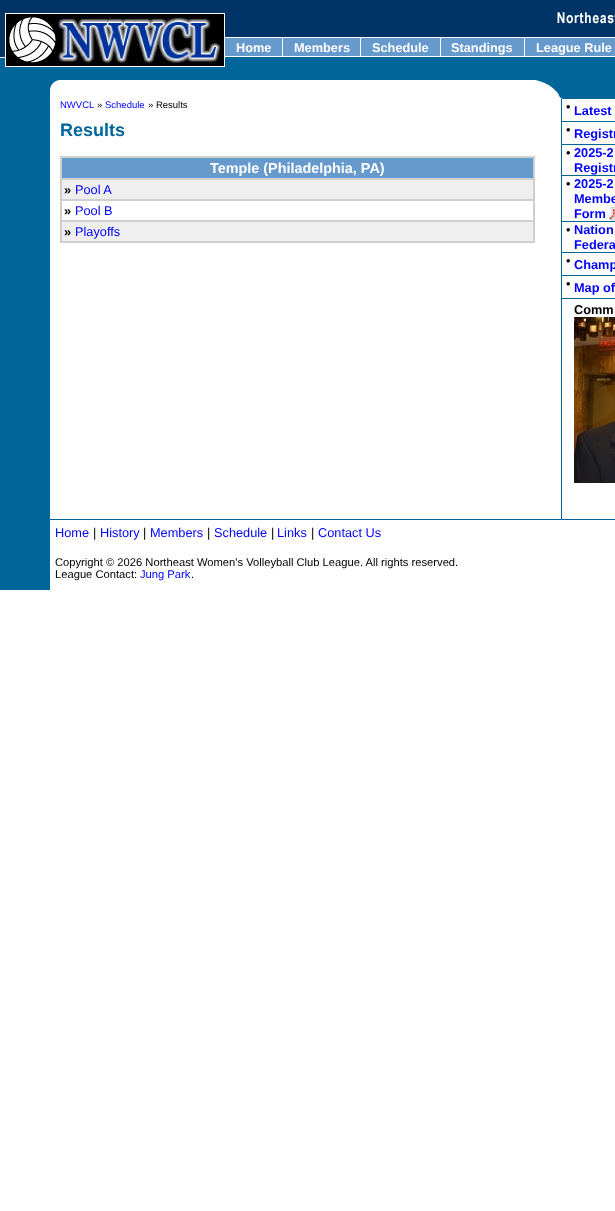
(async () => {
const canvas = document.querySelector("canvas")
canvas.width = 615
canvas.height = 1211
const c = canvas.getContext("2d")
c.miterLimit = 4
c.fontKerning = "normal"
function T(s,x,y){c.fillText(s,x,y)}
function R(x,y,w,h){c.fillRect(x,y,w,h)}
async function I(src,x,y,w,h){const img=new Image();img.src=src;await img.decode();c.drawImage(img,x,y,w,h)}
c.fillStyle="#fff"
R(0,0,615,1211)
await I("1.png",0,0,225,80)
c.fillStyle="#036"
R(225,0,390,37)
await I("2.png",557,12,58,12)
c.fillStyle="#69c"
R(225,38,390,18)
c.font="bold 12.75px Liberation Sans"
c.fillStyle="#fff"
T("Home",236,52)
R(282,38,1,18)
T("Members",294,52)
R(360,38,1,18)
T("Schedule",372,52)
R(440,38,1,18)
T("Standings",451,52)
R(524,38,1,18)
T("League Rule",536,52)
c.fillStyle="#069"
R(225,57,390,23)
R(0,80,50,510)
await I("3.png",50,80,9,9)
await I("4.png",535,80,28,19)
R(563,80,52,19)
c.font="9.5px Liberation Sans"
c.fillStyle="#00f"
T("NWVCL",60,108)
c.fillStyle="#000"
T("»",97,108)
c.fillStyle="#00f"
T("Schedule",105,108)
c.fillStyle="#000"
T("» Results",148,108)
c.font="bold 18px Liberation Sans"
c.fillStyle="#069"
T("Results",60,136)
c.fillStyle="#cfcfcf"
R(60,156,475,87)
c.fillStyle="#69c"
R(62,158,471,20)
c.font="bold 14.4px Liberation Sans"
c.fillStyle="#fff"
T("Temple (Philadelphia, PA)",210,173)
c.fillStyle="#efefef"
R(62,180,471,19)
c.font="bold 12.75px Liberation Sans"
c.fillStyle="#000"
T("»",64,194)
c.font="12.75px Liberation Sans"
c.fillStyle="#00f"
T("Pool A",75,194)
c.fillStyle="#fff"
R(62,201,471,19)
c.font="bold 12.75px Liberation Sans"
c.fillStyle="#000"
T("»",64,215)
c.font="12.75px Liberation Sans"
c.fillStyle="#00f"
T("Pool B",75,215)
c.fillStyle="#efefef"
R(62,222,471,19)
c.font="bold 12.75px Liberation Sans"
c.fillStyle="#000"
T("»",64,236)
c.font="12.75px Liberation Sans"
c.fillStyle="#00f"
T("Playoffs",75,236)
c.fillStyle="#069"
R(561,99,1,420)
c.fillStyle="#000"
T("•",566,111)
c.font="bold 12.75px Liberation Sans"
c.fillStyle="#00f"
T("Latest",574,115)
c.fillStyle="#069"
R(562,121,53,1)
c.font="12.75px Liberation Sans"
c.fillStyle="#000"
T("•",566,134)
c.font="bold 12.75px Liberation Sans"
c.fillStyle="#00f"
T("Registr",574,138)
c.fillStyle="#069"
R(562,144,53,1)
c.font="12.75px Liberation Sans"
c.fillStyle="#000"
T("•",566,157)
c.font="bold 12.75px Liberation Sans"
c.fillStyle="#00f"
T("2025-2",574,157)
T("Registr",574,172)
c.fillStyle="#069"
R(562,175,53,1)
c.font="12.75px Liberation Sans"
c.fillStyle="#000"
T("•",566,188)
c.font="bold 12.75px Liberation Sans"
c.fillStyle="#00f"
T("2025-2",574,188)
T("Membe",574,203)
T("Form",574,218)
await I("5.png",609,207,6,14)
c.fillStyle="#069"
R(562,221,53,1)
c.font="12.75px Liberation Sans"
c.fillStyle="#000"
T("•",566,234)
c.font="bold 12.75px Liberation Sans"
c.fillStyle="#00f"
T("Nation",574,234)
T("Federa",574,249)
c.fillStyle="#069"
R(562,252,53,1)
c.font="12.75px Liberation Sans"
c.fillStyle="#000"
T("•",566,265)
c.font="bold 12.75px Liberation Sans"
c.fillStyle="#00f"
T("Champ",574,269)
c.fillStyle="#069"
R(562,275,53,1)
c.font="12.75px Liberation Sans"
c.fillStyle="#000"
T("•",566,288)
c.font="bold 12.75px Liberation Sans"
c.fillStyle="#00f"
T("Map of",574,292)
c.fillStyle="#069"
R(562,298,53,1)
c.fillStyle="#000"
T("Comm",574,314)
await I("6.png",574,317,41,166)
c.fillStyle="#069"
R(50,519,565,1)
c.font="12.75px Liberation Sans"
c.fillStyle="#00f"
T("Home",55,537)
c.fillStyle="#000"
T("|",93,537)
c.fillStyle="#00f"
T("History",100,537)
c.fillStyle="#000"
T("|",143,537)
c.fillStyle="#00f"
T("Members",150,537)
c.fillStyle="#000"
T("|",207,537)
c.fillStyle="#00f"
T("Schedule",214,537)
c.fillStyle="#000"
T("|",271,537)
c.fillStyle="#00f"
T("Links",277,537)
c.fillStyle="#000"
T("|",311,537)
c.fillStyle="#00f"
T("Contact Us",318,537)
c.font="11.2px Liberation Sans"
c.fillStyle="#000"
T("Copyright © 2026 Northeast Women's Volleyball Club League. All rights reserved.",55,566)
T("League Contact:",55,578)
c.fillStyle="#00f"
T("Jung Park",140,578)
c.fillStyle="#000"
T(".",191,578)
})()
